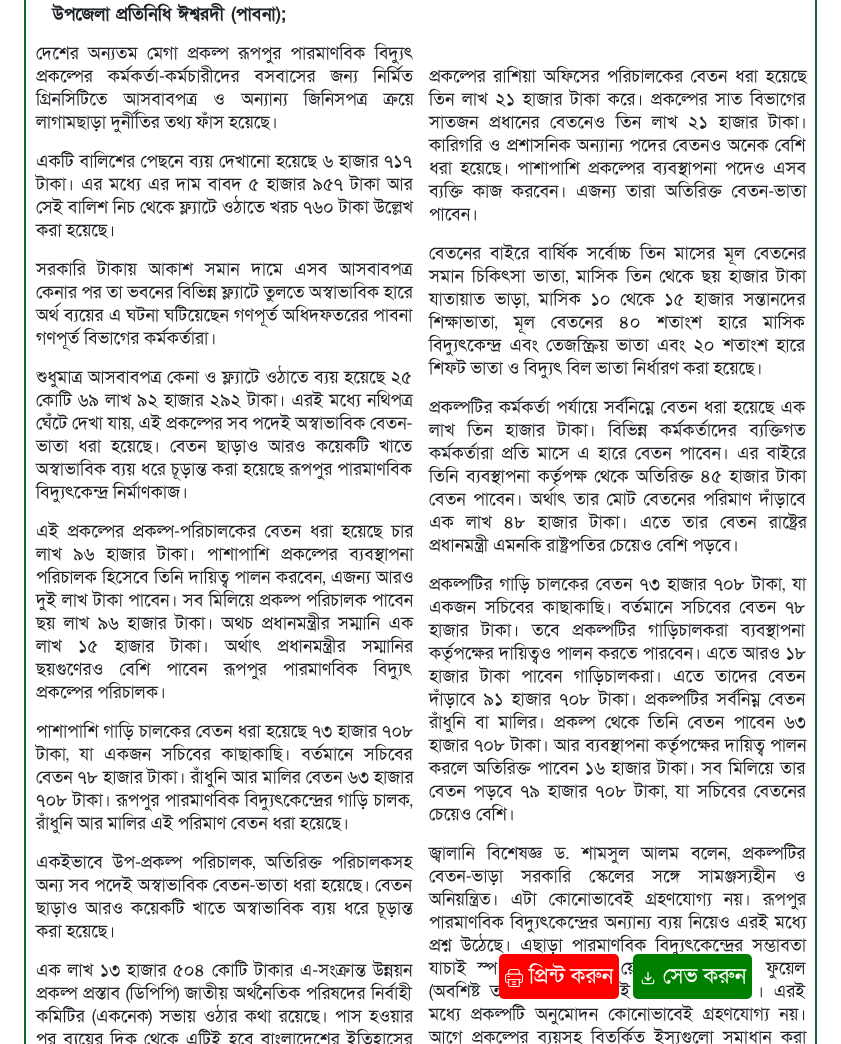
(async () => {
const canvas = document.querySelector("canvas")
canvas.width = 841
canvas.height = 1044
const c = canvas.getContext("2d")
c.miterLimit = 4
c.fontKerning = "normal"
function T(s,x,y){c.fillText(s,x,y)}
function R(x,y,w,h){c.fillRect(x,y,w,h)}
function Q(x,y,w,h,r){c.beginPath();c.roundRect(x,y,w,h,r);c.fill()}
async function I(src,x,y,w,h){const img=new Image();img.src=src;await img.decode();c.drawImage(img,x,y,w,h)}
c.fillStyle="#fff"
R(0,0,841,1044)
c.strokeStyle="#106634"
c.lineWidth=2
c.strokeRect(25,-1,791,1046)
c.font="bold 18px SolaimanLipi"
c.fillStyle="#212529"
T("উপজেলা প্রতিনিধি ঈশ্বরদী (পাবনা);",52,20)
c.wordSpacing="4.75px"
c.font="18px SolaimanLipi"
T("দেশের অন্যতম মেগা প্রকল্প রূপপুর পারমাণবিক বিদ্যুৎ",36,59)
c.wordSpacing="10.5px"
T("প্রকল্পের কর্মকর্তা-কর্মচারীদের বসবাসের জন্য নির্মিত",36,82)
c.wordSpacing="11.5px"
T("গ্রিনসিটিতে আসবাবপত্র ও অন্যান্য জিনিসপত্র ক্রয়ে",36,105)
c.wordSpacing="0px"
T("লাগামছাড়া দুর্নীতির তথ্য ফাঁস হয়েছে।",36,128)
c.wordSpacing="3px"
T("প্রকল্পের রাশিয়া অফিসের পরিচালকের বেতন ধরা হয়েছে",429,82)
T("তিন লাখ ২১ হাজার টাকা করে। প্রকল্পের সাত বিভাগের",429,105)
c.wordSpacing="6px"
T("সাতজন প্রধানের বেতনেও তিন লাখ ২১ হাজার টাকা।",429,128)
c.wordSpacing="1.6px"
T("কারিগরি ও প্রশাসনিক অন্যান্য পদের বেতনও অনেক বেশি",429,151)
c.wordSpacing="3.5px"
T("ধরা হয়েছে। পাশাপাশি প্রকল্পের ব্যবস্থাপনা পদেও এসব",429,174)
c.wordSpacing="5px"
T("ব্যক্তি কাজ করবেন। এজন্য তারা অতিরিক্ত বেতন-ভাতা",429,197)
c.wordSpacing="0px"
T("পাবেন।",429,220)
c.wordSpacing="1px"
T("একটি বালিশের পেছনে ব্যয় দেখানো হয়েছে ৬ হাজার ৭১৭",36,167)
c.wordSpacing="2.25px"
T("টাকা। এর মধ্যে এর দাম বাবদ ৫ হাজার ৯৫৭ টাকা আর",36,190)
c.wordSpacing="0.25px"
T("সেই বালিশ নিচ থেকে ফ্ল্যাটে ওঠাতে খরচ ৭৬০ টাকা উল্লেখ",36,213)
c.wordSpacing="0px"
T("করা হয়েছে।",36,236)
c.wordSpacing="7px"
T("সরকারি টাকায় আকাশ সমান দামে এসব আসবাবপত্র",36,275)
c.wordSpacing="0px"
T("কেনার পর তা ভবনের বিভিন্ন ফ্ল্যাটে তুলতে অস্বাভাবিক হারে",36,298)
c.wordSpacing="0.5px"
T("অর্থ ব্যয়ের এ ঘটনা ঘটিয়েছেন গণপূর্ত অধিদফতরের পাবনা",36,321)
c.wordSpacing="0px"
T("গণপূর্ত বিভাগের কর্মকর্তারা।",36,344)
c.wordSpacing="4.25px"
T("বেতনের বাইরে বার্ষিক সর্বোচ্চ তিন মাসের মূল বেতনের",429,259)
c.wordSpacing="3.25px"
T("সমান চিকিৎসা ভাতা, মাসিক তিন থেকে ছয় হাজার টাকা",429,282)
c.wordSpacing="5px"
T("যাতায়াত ভাড়া, মাসিক ১০ থেকে ১৫ হাজার সন্তানদের",429,305)
c.wordSpacing="11.5px"
T("শিক্ষাভাতা, মূল বেতনের ৪০ শতাংশ হারে মাসিক",429,328)
c.wordSpacing="3.5px"
T("বিদ্যুৎকেন্দ্র এবং তেজস্ক্রিয় ভাতা এবং ২০ শতাংশ হারে",429,351)
c.wordSpacing="0px"
T("শিফট ভাতা ও বিদ্যুৎ বিল ভাতা নির্ধারণ করা হয়েছে।",429,374)
c.wordSpacing="1px"
T("শুধুমাত্র আসবাবপত্র কেনা ও ফ্ল্যাটে ওঠাতে ব্যয় হয়েছে ২৫",36,383)
c.wordSpacing="1.6px"
T("কোটি ৬৯ লাখ ৯২ হাজার ২৯২ টাকা। এরই মধ্যে নথিপত্র",36,406)
c.wordSpacing="0px"
T("ঘেঁটে দেখা যায়, এই প্রকল্পের সব পদেই অস্বাভাবিক বেতন-",36,429)
c.wordSpacing="5.25px"
T("ভাতা ধরা হয়েছে। বেতন ছাড়াও আরও কয়েকটি খাতে",36,452)
c.wordSpacing="0.5px"
T("অস্বাভাবিক ব্যয় ধরে চূড়ান্ত করা হয়েছে রূপপুর পারমাণবিক",36,475)
c.wordSpacing="0px"
T("বিদ্যুৎকেন্দ্র নির্মাণকাজ।",36,498)
c.wordSpacing="1.75px"
T("প্রকল্পটির কর্মকর্তা পর্যায়ে সর্বনিম্নে বেতন ধরা হয়েছে এক",429,413)
c.wordSpacing="8px"
T("লাখ তিন হাজার টাকা। বিভিন্ন কর্মকর্তাদের ব্যক্তিগত",429,436)
c.wordSpacing="3.5px"
T("কর্মকর্তারা প্রতি মাসে এ হারে বেতন পাবেন। এর বাইরে",429,459)
c.wordSpacing="2.75px"
T("তিনি ব্যবস্থাপনা কর্তৃপক্ষ থেকে অতিরিক্ত ৪৫ হাজার টাকা",429,482)
c.wordSpacing="3px"
T("বেতন পাবেন। অর্থাৎ তার মোট বেতনের পরিমাণ দাঁড়াবে",429,505)
c.wordSpacing="7.5px"
T("এক লাখ ৪৮ হাজার টাকা। এতে তার বেতন রাষ্ট্রের",429,528)
c.wordSpacing="0px"
T("প্রধানমন্ত্রী এমনকি রাষ্ট্রপতির চেয়েও বেশি পড়বে।",429,551)
c.wordSpacing="4px"
T("এই প্রকল্পের প্রকল্প-পরিচালকের বেতন ধরা হয়েছে চার",36,537)
c.wordSpacing="7px"
T("লাখ ৯৬ হাজার টাকা। পাশাপাশি প্রকল্পের ব্যবস্থাপনা",36,560)
c.wordSpacing="0.75px"
T("পরিচালক হিসেবে তিনি দায়িত্ব পালন করবেন, এজন্য আরও",36,583)
T("দুই লাখ টাকা পাবেন। সব মিলিয়ে প্রকল্প পরিচালক পাবেন",36,606)
c.wordSpacing="3.75px"
T("ছয় লাখ ৯৬ হাজার টাকা। অথচ প্রধানমন্ত্রীর সম্মানি এক",36,629)
c.wordSpacing="11.75px"
T("লাখ ১৫ হাজার টাকা। অর্থাৎ প্রধানমন্ত্রীর সম্মানির",36,652)
c.wordSpacing="11.5px"
T("ছয়গুণেরও বেশি পাবেন রূপপুর পারমাণবিক বিদ্যুৎ",36,675)
c.wordSpacing="0px"
T("প্রকল্পের পরিচালক।",36,698)
c.wordSpacing="2.5px"
T("প্রকল্পটির গাড়ি চালকের বেতন ৭৩ হাজার ৭০৮ টাকা, যা",429,590)
c.wordSpacing="4.25px"
T("একজন সচিবের কাছাকাছি। বর্তমানে সচিবের বেতন ৭৮",429,613)
c.wordSpacing="8px"
T("হাজার টাকা। তবে প্রকল্পটির গাড়িচালকরা ব্যবস্থাপনা",429,636)
c.wordSpacing="0.75px"
T("কর্তৃপক্ষের দায়িত্বও পালন করতে পারবেন। এতে আরও ১৮",429,659)
c.wordSpacing="6.75px"
T("হাজার টাকা পাবেন গাড়িচালকরা। এতে তাদের বেতন",429,682)
c.wordSpacing="3.5px"
T("দাঁড়াবে ৯১ হাজার ৭০৮ টাকা। প্রকল্পটির সর্বনিম্ন বেতন",429,705)
c.wordSpacing="4.75px"
T("রাঁধুনি বা মালির। প্রকল্প থেকে তিনি বেতন পাবেন ৬৩",429,728)
c.wordSpacing="0.75px"
T("হাজার ৭০৮ টাকা। আর ব্যবস্থাপনা কর্তৃপক্ষের দায়িত্ব পালন",429,751)
c.wordSpacing="1.75px"
T("করলে অতিরিক্ত পাবেন ১৬ হাজার টাকা। সব মিলিয়ে তার",429,774)
c.wordSpacing="3.25px"
T("বেতন পড়বে ৭৯ হাজার ৭০৮ টাকা, যা সচিবের বেতনের",429,797)
c.wordSpacing="0px"
T("চেয়েও বেশি।",429,820)
c.wordSpacing="0.5px"
T("পাশাপাশি গাড়ি চালকের বেতন ধরা হয়েছে ৭৩ হাজার ৭০৮",36,737)
c.wordSpacing="6px"
T("টাকা, যা একজন সচিবের কাছাকাছি। বর্তমানে সচিবের",36,760)
c.wordSpacing="0.25px"
T("বেতন ৭৮ হাজার টাকা। রাঁধুনি আর মালির বেতন ৬৩ হাজার",36,783)
c.wordSpacing="0.75px"
T("৭০৮ টাকা। রূপপুর পারমাণবিক বিদ্যুৎকেন্দ্রের গাড়ি চালক,",36,806)
c.wordSpacing="0px"
T("রাঁধুনি আর মালির এই পরিমাণ বেতন ধরা হয়েছে।",36,829)
c.wordSpacing="5px"
T("একইভাবে উপ-প্রকল্প পরিচালক, অতিরিক্ত পরিচালকসহ",36,868)
c.wordSpacing="0.5px"
T("অন্য সব পদেই অস্বাভাবিক বেতন-ভাতা ধরা হয়েছে। বেতন",36,891)
c.wordSpacing="3.25px"
T("ছাড়াও আরও কয়েকটি খাতে অস্বাভাবিক ব্যয় ধরে চূড়ান্ত",36,914)
c.wordSpacing="0px"
T("করা হয়েছে।",36,937)
c.wordSpacing="7.5px"
T("জ্বালানি বিশেষজ্ঞ ড. শামসুল আলম বলেন, প্রকল্পটির",429,859)
c.wordSpacing="13.5px"
T("বেতন-ভাড়া সরকারি স্কেলের সঙ্গে সামঞ্জস্যহীন ও",429,882)
c.wordSpacing="7.5px"
T("অনিয়ন্ত্রিত। এটা কোনোভাবেই গ্রহণযোগ্য নয়। রূপপুর",429,905)
c.wordSpacing="2px"
T("পারমাণবিক বিদ্যুৎকেন্দ্রের অন্যান্য ব্যয় নিয়েও এরই মধ্যে",429,928)
c.wordSpacing="4.5px"
T("প্রশ্ন উঠেছে। এছাড়া পারমাণবিক বিদ্যুৎকেন্দ্রের সম্ভাবতা",429,951)
c.wordSpacing="6px"
T("যাচাই স্প",429,974)
T("য়ে",621,974)
T("ফুয়েল",766,974)
c.wordSpacing="5px"
T("(অবশিষ্ট ত",429,997)
T("ই",620,997)
T("। এরই",756,997)
c.wordSpacing="5.5px"
T("মধ্যে প্রকল্পটি অনুমোদন কোনোভাবেই গ্রহণযোগ্য নয়।",429,1020)
c.wordSpacing="4.5px"
T("আগে প্রকল্পের ব্যয়সহ বিতর্কিত ইস্যুগুলো সমাধান করা",429,1043)
c.wordSpacing="2px"
T("এক লাখ ১৩ হাজার ৫০৪ কোটি টাকার এ-সংক্রান্ত উন্নয়ন",36,976)
c.wordSpacing="1px"
T("প্রকল্প প্রস্তাব (ডিপিপি) জাতীয় অর্থনৈতিক পরিষদের নির্বাহী",36,999)
c.wordSpacing="2.75px"
T("কমিটির (একনেক) সভায় ওঠার কথা রয়েছে। পাস হওয়ার",36,1022)
c.wordSpacing="2.5px"
T("পর ব্যয়ের দিক থেকে এটিই হবে বাংলাদেশের ইতিহাসের",36,1045)
c.fillStyle="#f00"
Q(499,954,120,45,5)
await I("1.png",505,969,18,18)
c.wordSpacing="0px"
c.font="22px SolaimanLipi"
c.fillStyle="#fff"
T("প্রিন্ট করুন",529,983)
c.fillStyle="#008000"
Q(633,954,119,45,5)
await I("2.png",641,971,14,14)
c.fillStyle="#fff"
T("সেভ করুন",663,983)
})()
